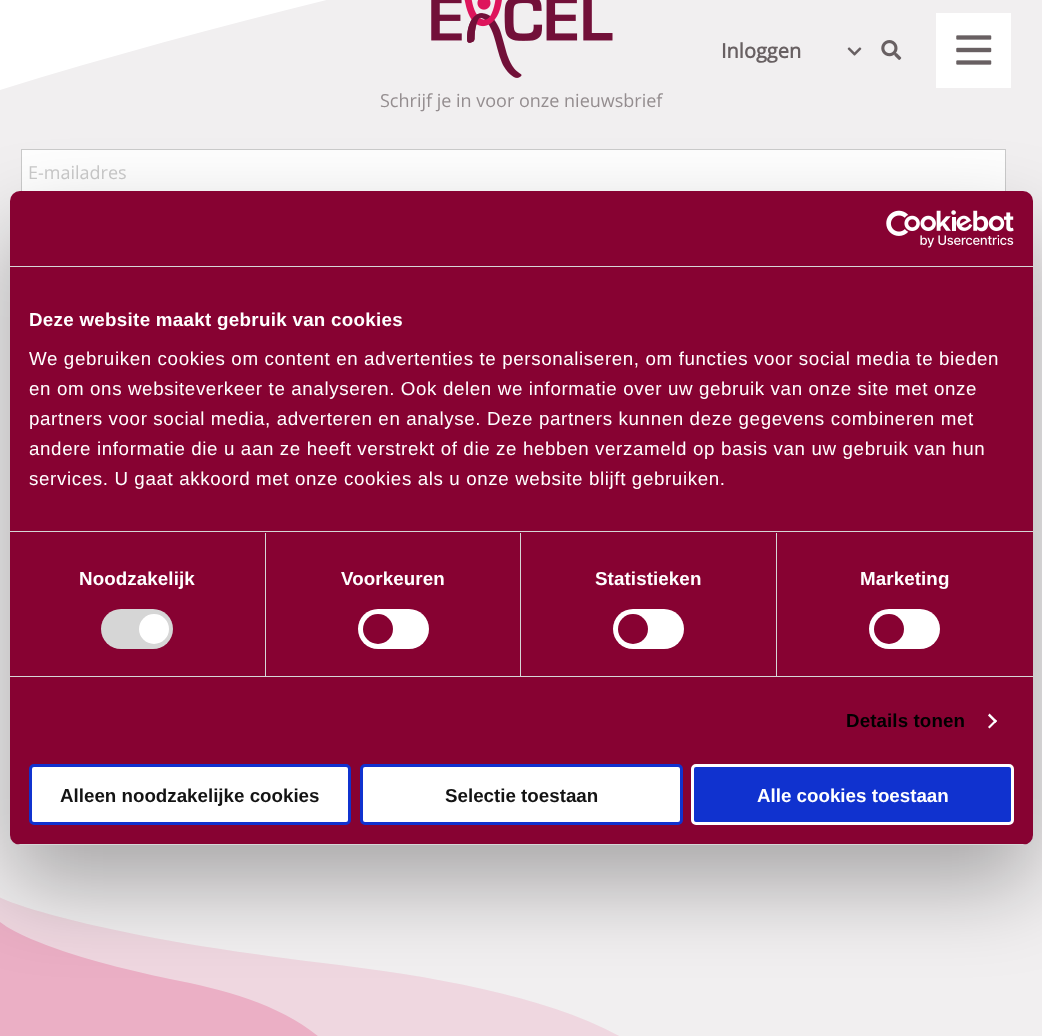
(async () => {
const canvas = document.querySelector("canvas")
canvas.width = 1042
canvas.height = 1036
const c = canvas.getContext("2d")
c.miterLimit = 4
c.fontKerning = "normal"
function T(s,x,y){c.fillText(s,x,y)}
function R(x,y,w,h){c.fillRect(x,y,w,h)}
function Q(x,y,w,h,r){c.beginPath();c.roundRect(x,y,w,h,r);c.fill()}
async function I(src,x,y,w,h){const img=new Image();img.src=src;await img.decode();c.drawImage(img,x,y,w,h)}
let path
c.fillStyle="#fff"
R(0,0,1042,1036)
c.fillStyle="#f1eff0"
path = new Path2D("M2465-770c-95 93-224 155-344 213c-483 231-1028 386-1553 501c-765 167-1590 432-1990 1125h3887z")
c.fill(path,"evenodd")
c.font="bold 20px Open Sans"
c.fillStyle="#686062"
T("Inloggen",721,58)
await I("1.png",847,47,15,9)
await I("2.png",881,40,21,20)
c.fillStyle="#fff"
R(936,13,75,75)
await I("3.png",956,35,36,30)
await I("4.png",431,0,182,78)
c.font="18px Open Sans"
c.fillStyle="#948d8f"
T("Schrijf je in voor onze nieuwsbrief",380,107)
c.fillStyle="#fefefe"
R(22,150,983,41)
c.strokeStyle="#cacaca"
c.strokeRect(21.5,149.5,984,48)
c.fillStyle="#cacaca"
T("E-mailadres",28,179)
c.fillStyle="#edc2d2"
path = new Path2D("M0 922c9 7 20 12 31 17c43 18 92 30 139 40c68 13 141 34 177 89h-347z")
c.fill(path,"evenodd")
c.fillStyle="#df0d5a1a"
path = new Path2D("M-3 896c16 8 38 14 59 20c83 22 177 36 267 47c132 16 274 41 343 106h-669z")
c.fill(path,"evenodd")
c.fillStyle="#0000004d"
c.filter="blur(42.5px)"
c.beginPath()
c.roundRect(10,231,1023,654,10)
c.fill()
c.filter="none"
c.fillStyle="#870232"
Q(10,191,1023,654,10)
c.fillStyle="#d6d6d6"
R(10,266,1023,1)
await I("5.png",886,210,128,38)
R(10,531,1023,1)
c.letterSpacing="0.3px"
c.font="bold 18.75px Liberation Sans"
c.fillStyle="#fff"
T("Deze website maakt gebruik van cookies",29,326)
c.letterSpacing="0.62px"
c.font="18.75px Liberation Sans"
T("We gebruiken cookies om content en advertenties te personaliseren, om functies voor social media te bieden",29,365)
T("en om ons websiteverkeer te analyseren. Ook delen we informatie over uw gebruik van onze site met onze",29,395)
T("partners voor social media, adverteren en analyse. Deze partners kunnen deze gegevens combineren met",29,425)
T("andere informatie die u aan ze heeft verstrekt of die ze hebben verzameld op basis van uw gebruik van hun",29,455)
T("services. U gaat akkoord met onze cookies als u onze website blijft gebruiken.",29,485)
c.fillStyle="#d6d6d6"
R(10,676,1023,1)
R(265,533,1,143)
c.letterSpacing="0.1px"
c.font="bold 18.75px Liberation Sans"
c.fillStyle="#fff"
T("Noodzakelijk",79,585)
c.fillStyle="#d6d6d6"
Q(101,609,72,40,20)
c.fillStyle="#fff"
c.beginPath()
c.arc(154,629,15,0,7)
c.fill()
c.fillStyle="#d6d6d6"
R(520,533,1,143)
c.fillStyle="#fff"
T("Voorkeuren",341,585)
Q(358,609,71,40,20)
c.fillStyle="#870232"
c.beginPath()
c.arc(378,629,15,0,7)
c.fill()
c.fillStyle="#d6d6d6"
R(776,533,1,143)
c.fillStyle="#fff"
T("Statistieken",595,585)
Q(613,609,71,40,20)
c.fillStyle="#870232"
c.beginPath()
c.arc(633,629,15,0,7)
c.fill()
c.fillStyle="#fff"
T("Marketing",860,585)
Q(869,609,71,40,20)
c.fillStyle="#870232"
c.beginPath()
c.arc(889,629,15,0,7)
c.fill()
c.fillStyle="#000"
T("Details tonen",846,727)
c.fillStyle="#fff"
path = new Path2D("M989.5 713.5l7.5 7.5l-1.5 2l-7.5-7.5z")
c.fill(path)
path = new Path2D("M995.5 719.5l1.5 1.5l-7.5 7.5l-1.5-1.5z")
c.fill(path)
c.save()
c.beginPath()
c.roundRect(10,191,1023,654,10)
c.clip()
c.fillStyle="#d6d6d6"
R(10,844,1023,1)
c.restore()
c.beginPath()
c.roundRect(30.5,765.5,319,58,3.5)
c.fill()
c.strokeStyle="#1032cf"
c.lineWidth=3
c.stroke()
c.letterSpacing="0px"
c.fillStyle="#141414"
T("Alleen noodzakelijke cookies",60,802)
c.fillStyle="#fff"
c.beginPath()
c.roundRect(361.5,765.5,320,58,3.5)
c.fill()
c.stroke()
c.fillStyle="#141414"
T("Selectie toestaan",445,802)
c.fillStyle="#1032cf"
c.beginPath()
c.roundRect(692.5,765.5,320,58,3.5)
c.fill()
c.strokeStyle="#fff"
c.stroke()
c.fillStyle="#fff"
T("Alle cookies toestaan",757,802)
})()
